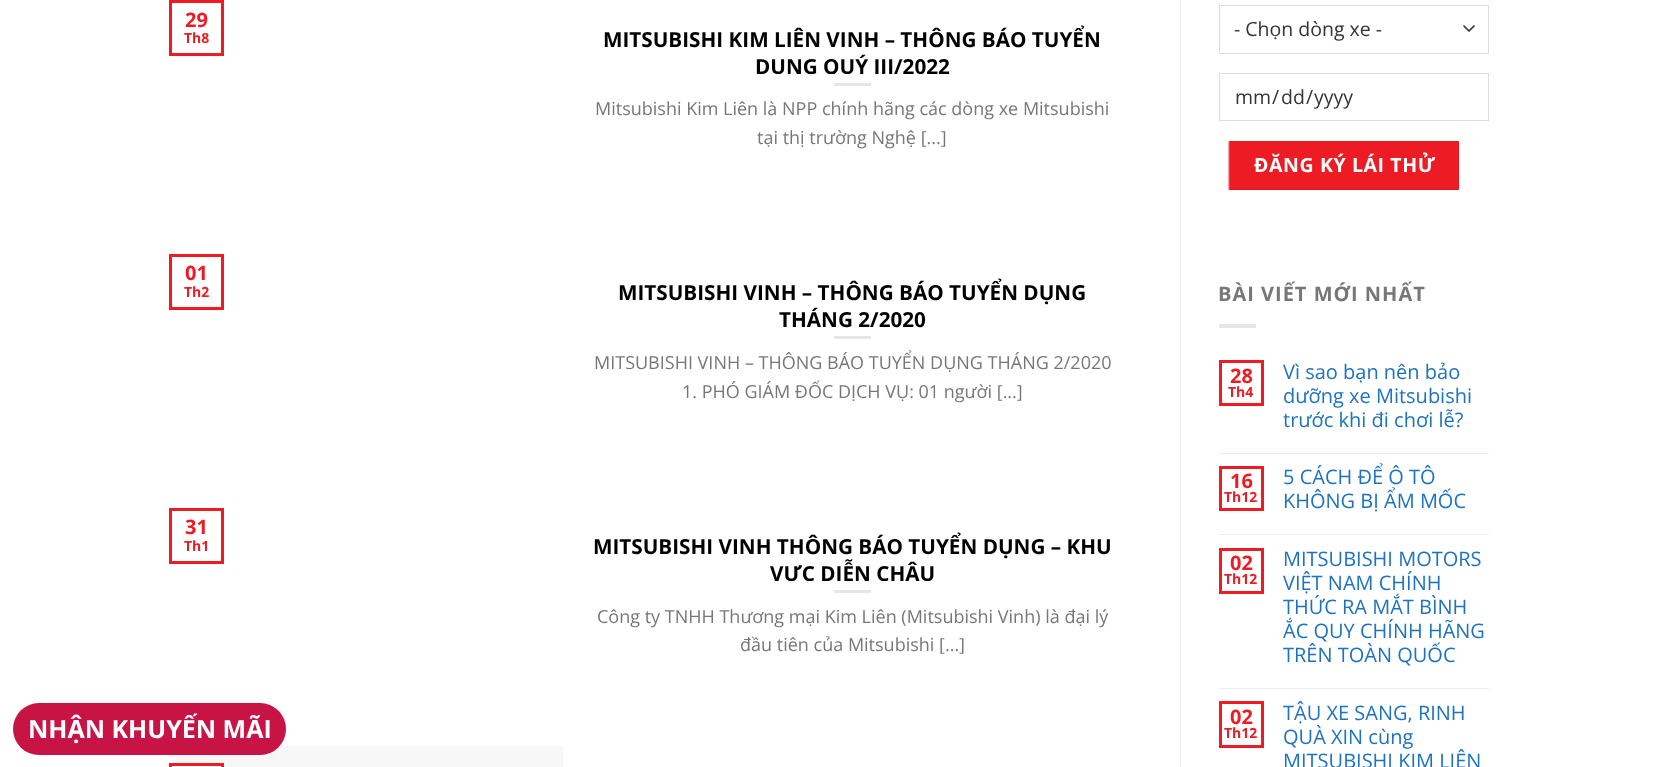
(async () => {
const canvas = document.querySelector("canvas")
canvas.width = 1665
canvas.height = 767
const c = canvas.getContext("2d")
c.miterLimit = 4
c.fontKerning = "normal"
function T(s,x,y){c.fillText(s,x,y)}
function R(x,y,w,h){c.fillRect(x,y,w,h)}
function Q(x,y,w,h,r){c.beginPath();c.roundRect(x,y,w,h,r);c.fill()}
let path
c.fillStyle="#fff"
R(0,0,1665,767)
c.fillStyle="#f7f7f7"
R(176,746,387,21)
c.fillStyle="#c71444"
Q(13,703,273,52,26)
c.font="bold 25px Open Sans"
c.fillStyle="#fff"
T("NHẬN KHUYẾN MÃI",28,738)
c.strokeStyle="#ed1c24"
c.lineWidth=3
c.strokeRect(170.5,1.5,52,53)
c.font="bold 20px Open Sans"
c.fillStyle="#ed1c24"
T("29",185,27)
c.font="bold 14px Open Sans"
T("Th8",184,43)
c.font="bold 20.7px Open Sans"
c.fillStyle="#000"
T("MITSUBISHI KIM LIÊN VINH – THÔNG BÁO TUYỂN",603,47)
c.save()
c.beginPath()
c.rect(590,24,525,50)
c.clip()
T("DỤNG QUÝ III/2022",755,74)
c.restore()
c.fillStyle="#e6e6e6"
R(834,83,37,3)
c.font="18px Open Sans"
c.fillStyle="#777"
T("Mitsubishi Kim Liên là NPP chính hãng các dòng xe Mitsubishi",595,115)
T("tại thị trường Nghệ [...]",757,144)
c.strokeRect(170.5,255.5,52,53)
c.font="bold 20px Open Sans"
c.fillStyle="#ed1c24"
T("01",185,280)
c.font="bold 14px Open Sans"
T("Th2",184,297)
c.font="bold 20.7px Open Sans"
c.fillStyle="#000"
T("MITSUBISHI VINH – THÔNG BÁO TUYỂN DỤNG",618,300)
T("THÁNG 2/2020",779,327)
c.fillStyle="#e6e6e6"
R(834,336,37,3)
c.font="18px Open Sans"
c.fillStyle="#777"
T("MITSUBISHI VINH – THÔNG BÁO TUYỂN DỤNG THÁNG 2/2020",594,369)
T("1. PHÓ GIÁM ĐỐC DỊCH VỤ: 01 người [...]",682,398)
c.strokeRect(170.5,509.5,52,53)
c.font="bold 20px Open Sans"
c.fillStyle="#ed1c24"
T("31",185,534)
c.font="bold 14px Open Sans"
T("Th1",184,551)
c.font="bold 20.7px Open Sans"
c.fillStyle="#000"
T("MITSUBISHI VINH THÔNG BÁO TUYỂN DỤNG – KHU",593,554)
c.save()
c.beginPath()
c.rect(590,531,525,50)
c.clip()
T("VỰC DIỄN CHÂU",770,581)
c.restore()
c.fillStyle="#e6e6e6"
R(834,590,37,3)
c.font="18px Open Sans"
c.fillStyle="#777"
T("Công ty TNHH Thương mại Kim Liên (Mitsubishi Vinh) là đại lý",597,623)
T("đầu tiên của Mitsubishi [...]",740,651)
c.fillStyle="#fff"
c.beginPath()
c.rect(170.5,764.5,52,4)
c.fill()
c.stroke()
c.fillStyle="#ececec"
R(1180,0,1,767)
path = new Path2D("M1464 26l5 5l5-5")
c.strokeStyle="#333"
c.lineWidth=1.7
c.lineCap="round"
c.lineJoin="round"
c.stroke(path)
c.strokeStyle="#ddd"
c.lineWidth=1
c.lineJoin="miter"
c.strokeRect(1219.5,5.5,269,48)
c.font="19.5px Open Sans"
c.fillStyle="#333"
T("- Chọn dòng xe -",1234,36)
c.strokeRect(1219.5,73.5,269,47)
T("mm",1235,104)
T("/",1272,104)
T("dd",1281,104)
T("/",1306,104)
T("yyyy",1314,104)
c.fillStyle="#ed1c24"
c.beginPath()
c.rect(1229.5,141.5,229,48)
c.fill()
c.strokeStyle="#e11b22"
c.stroke()
c.letterSpacing="0.6px"
c.font="bold 19.5px Open Sans"
c.fillStyle="#fff"
T("ĐĂNG KÝ LÁI THỬ",1254,172)
c.letterSpacing="1px"
c.font="bold 20px Open Sans"
c.fillStyle="#777"
T("BÀI VIẾT MỚI NHẤT",1218,301)
c.fillStyle="#e6e6e6"
R(1219,324,37,4)
c.strokeStyle="#ed1c24"
c.lineWidth=3
c.strokeRect(1220.5,361.5,42,43)
c.letterSpacing="0px"
c.fillStyle="#ed1c24"
T("28",1230,383)
c.font="bold 14px Open Sans"
T("Th4",1228,397)
c.font="20px Open Sans"
c.fillStyle="#1e73be"
T("Vì sao bạn nên bảo",1283,379)
T("dưỡng xe Mitsubishi",1283,403)
T("trước khi đi chơi lễ?",1283,427)
c.fillStyle="#ececec"
R(1219,453,270,1)
c.strokeRect(1220.5,467.5,42,42)
c.font="bold 20px Open Sans"
c.fillStyle="#ed1c24"
T("16",1230,488)
c.font="bold 14px Open Sans"
T("Th12",1224,502)
c.font="20px Open Sans"
c.fillStyle="#1e73be"
T("5 CÁCH ĐỂ Ô TÔ",1283,484)
T("KHÔNG BỊ ẨM MỐC",1283,508)
c.fillStyle="#ececec"
R(1219,534,270,1)
c.strokeRect(1220.5,549.5,42,43)
c.font="bold 20px Open Sans"
c.fillStyle="#ed1c24"
T("02",1230,570)
c.font="bold 14px Open Sans"
T("Th12",1224,584)
c.font="20px Open Sans"
c.fillStyle="#1e73be"
T("MITSUBISHI MOTORS",1283,566)
T("VIỆT NAM CHÍNH",1283,590)
T("THỨC RA MẮT BÌNH",1283,614)
T("ẮC QUY CHÍNH HÃNG",1283,638)
T("TRÊN TOÀN QUỐC",1283,662)
c.fillStyle="#ececec"
R(1219,688,270,1)
c.strokeRect(1220.5,702.5,42,44)
c.font="bold 20px Open Sans"
c.fillStyle="#ed1c24"
T("02",1230,724)
c.font="bold 14px Open Sans"
T("Th12",1224,738)
c.font="20px Open Sans"
c.fillStyle="#1e73be"
T("TẬU XE SANG, RINH",1283,720)
T("QUÀ XIN cùng",1283,744)
T("MITSUBISHI KIM LIÊN",1283,768)
})()
